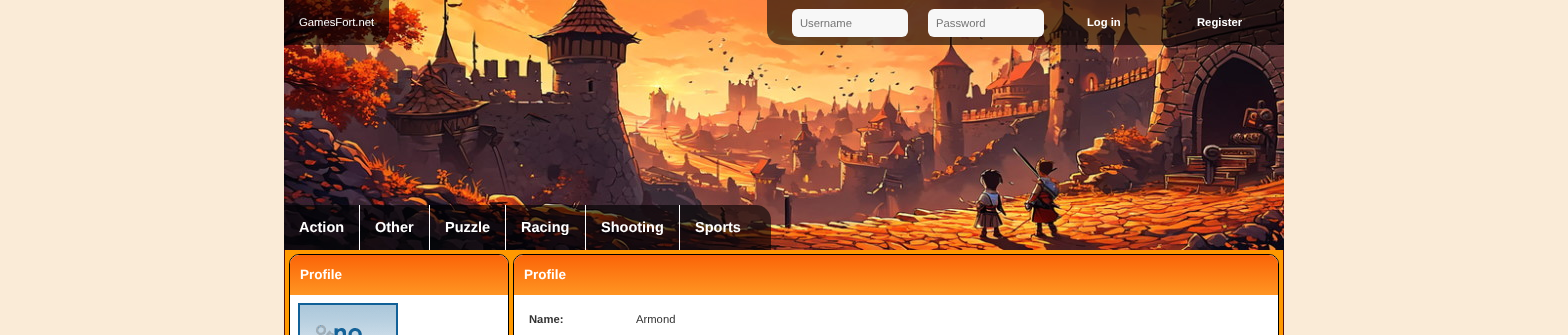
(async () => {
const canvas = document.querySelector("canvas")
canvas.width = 1568
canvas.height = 335
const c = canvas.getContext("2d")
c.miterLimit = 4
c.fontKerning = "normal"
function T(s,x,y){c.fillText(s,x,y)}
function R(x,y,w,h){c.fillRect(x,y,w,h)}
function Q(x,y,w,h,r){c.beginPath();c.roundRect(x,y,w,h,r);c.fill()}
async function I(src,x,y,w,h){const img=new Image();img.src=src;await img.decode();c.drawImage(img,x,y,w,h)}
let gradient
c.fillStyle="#faebd7"
R(0,0,1568,335)
await I("1.png",284,0,1000,250)
c.fillStyle="#00000099"
c.beginPath()
c.roundRect(284,0,105,45,[0,0,15,0])
c.fill()
c.font="11.25px Liberation Sans"
c.fillStyle="#fff"
T("GamesFort.net",299,26)
c.fillStyle="#00000099"
c.beginPath()
c.roundRect(767,0,517,45,[0,0,0,15])
c.fill()
c.fillStyle="#f7f7f7"
Q(792,9,116,28,6)
c.fillStyle="#757575"
T("Username",800,27)
c.fillStyle="#f7f7f7"
Q(928,9,116,28,6)
c.fillStyle="#757575"
T("Password",936,27)
c.font="bold 11.25px Liberation Sans"
c.fillStyle="#fff"
T("Log in",1087,26)
T("Register",1197,26)
c.fillStyle="#00000099"
c.beginPath()
c.roundRect(284,205,487,45,[0,15,0,0])
c.fill()
c.font="bold 14.5px Liberation Sans"
c.fillStyle="#fff"
T("Action",299,232)
R(359,205,1,45)
T("Other",375,232)
R(429,205,1,45)
T("Puzzle",445,232)
R(505,205,1,45)
T("Racing",521,232)
R(585,205,1,45)
T("Shooting",601,232)
R(679,205,1,45)
T("Sports",695,232)
c.fillStyle="#f90"
R(285,250,998,85)
c.fillStyle="#551011"
R(1283,250,1,85)
R(284,250,1,85)
c.fillStyle="#fff"
c.beginPath()
c.roundRect(289.5,254.5,219,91,9.5)
c.fill()
c.strokeStyle="#000"
c.stroke()
gradient = c.createLinearGradient(399,255,399,295)
gradient.addColorStop(0,"#fb6408")
gradient.addColorStop(1,"#ff9522")
c.fillStyle = gradient
c.beginPath()
c.roundRect(290,255,218,40,[9,9,0,0])
c.fill()
c.font="bold 13.5px Liberation Sans"
c.fillStyle="#fff"
T("Profile",300,279)
await I("2.png",298,303,100,32)
c.beginPath()
c.roundRect(513.5,254.5,765,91,9.5)
c.fill()
c.stroke()
gradient = c.createLinearGradient(896,255,896,295)
gradient.addColorStop(0,"#fb6408")
gradient.addColorStop(1,"#ff9522")
c.fillStyle = gradient
c.beginPath()
c.roundRect(514,255,764,40,[9,9,0,0])
c.fill()
c.fillStyle="#fff"
T("Profile",524,279)
c.font="bold 11.25px Liberation Sans"
c.fillStyle="#333"
T("Name:",529,323)
c.font="11.25px Liberation Sans"
T("Armond",636,323)
})()
